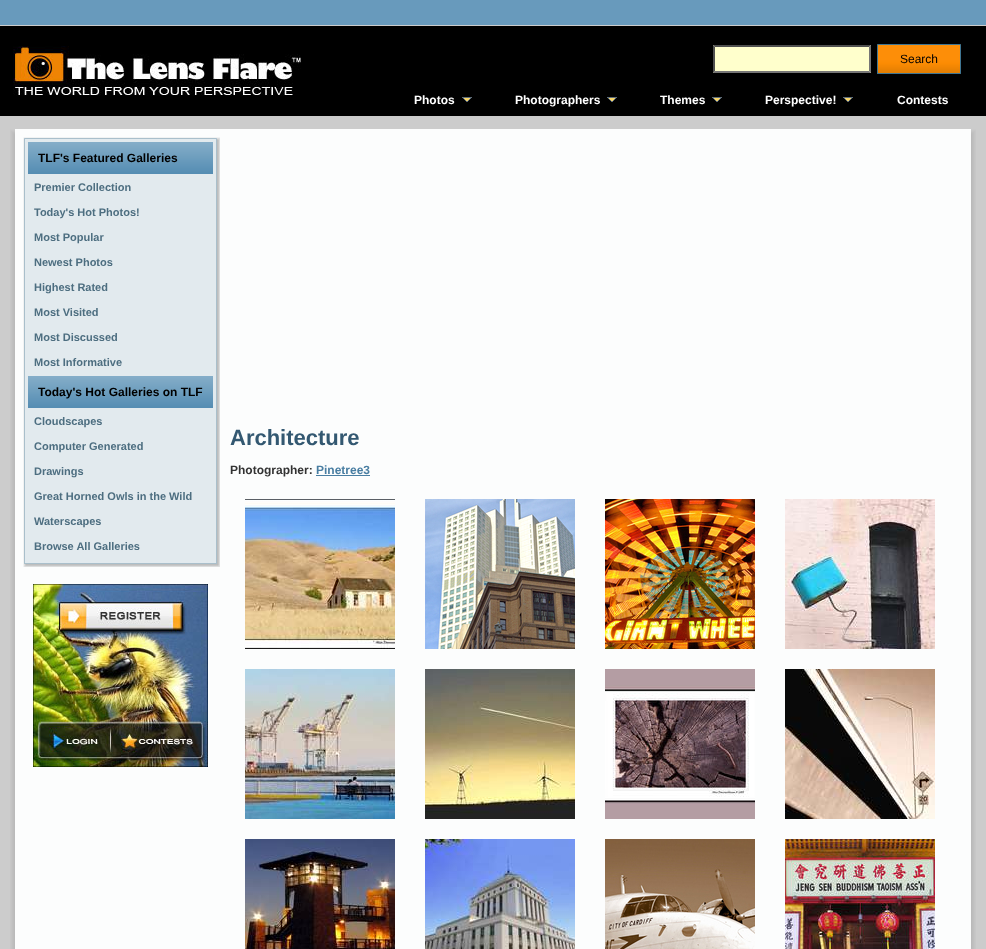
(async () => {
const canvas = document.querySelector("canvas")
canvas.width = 986
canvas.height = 949
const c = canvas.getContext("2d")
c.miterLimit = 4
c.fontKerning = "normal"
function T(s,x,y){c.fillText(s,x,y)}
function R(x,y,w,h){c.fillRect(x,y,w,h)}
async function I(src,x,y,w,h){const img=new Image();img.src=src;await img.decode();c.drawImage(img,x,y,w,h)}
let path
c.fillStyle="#ccc"
R(0,0,986,949)
c.fillStyle="#689abc"
R(0,0,986,25)
c.fillStyle="#000"
R(0,26,986,90)
await I("1.png",13,46,288,50)
c.fillStyle="#ffc"
R(713,45,158,28)
c.fillStyle="#4f4f4f"
path = new Path2D("M713 45h158l-2 2h-154z")
c.fill(path)
c.fillStyle="#767676"
path = new Path2D("M871 45v28l-2-2v-24z")
c.fill(path)
path = new Path2D("M871 73h-158l2-2h154z")
c.fill(path)
c.fillStyle="#4f4f4f"
path = new Path2D("M713 73v-28l2 2v24z")
c.fill(path)
await I("2.png",877,44,80,30)
await I("3.png",957,44,4,30)
c.font="12px Liberation Sans"
c.fillStyle="#000"
T("Search",900,63)
c.font="bold 12px Liberation Sans"
c.fillStyle="#fff"
T("Photos",414,104)
c.fillStyle="#5e6c78"
R(462,97,10,1)
c.fillStyle="#f7d56a"
R(464,98,6,1)
c.fillStyle="#5e6c78"
R(470,98,1,1)
R(463,98,1,1)
c.fillStyle="#f7d56a"
R(465,99,4,1)
c.fillStyle="#5e6c78"
R(469,99,1,1)
R(464,99,1,1)
c.fillStyle="#f7d56a"
R(466,100,2,1)
c.fillStyle="#5e6c78"
R(468,100,1,1)
R(465,100,1,1)
R(466,101,2,1)
c.fillStyle="#fff"
T("Photographers",515,104)
c.fillStyle="#5e6c78"
R(607,97,10,1)
c.fillStyle="#f7d56a"
R(609,98,6,1)
c.fillStyle="#5e6c78"
R(615,98,1,1)
R(608,98,1,1)
c.fillStyle="#f7d56a"
R(610,99,4,1)
c.fillStyle="#5e6c78"
R(614,99,1,1)
R(609,99,1,1)
c.fillStyle="#f7d56a"
R(611,100,2,1)
c.fillStyle="#5e6c78"
R(613,100,1,1)
R(610,100,1,1)
R(611,101,2,1)
c.fillStyle="#fff"
T("Themes",660,104)
c.fillStyle="#5e6c78"
R(712,97,10,1)
c.fillStyle="#f7d56a"
R(714,98,6,1)
c.fillStyle="#5e6c78"
R(720,98,1,1)
R(713,98,1,1)
c.fillStyle="#f7d56a"
R(715,99,4,1)
c.fillStyle="#5e6c78"
R(719,99,1,1)
R(714,99,1,1)
c.fillStyle="#f7d56a"
R(716,100,2,1)
c.fillStyle="#5e6c78"
R(718,100,1,1)
R(715,100,1,1)
R(716,101,2,1)
c.fillStyle="#fff"
T("Perspective!",765,104)
c.fillStyle="#5e6c78"
R(843,97,10,1)
c.fillStyle="#f7d56a"
R(845,98,6,1)
c.fillStyle="#5e6c78"
R(851,98,1,1)
R(844,98,1,1)
c.fillStyle="#f7d56a"
R(846,99,4,1)
c.fillStyle="#5e6c78"
R(850,99,1,1)
R(845,99,1,1)
c.fillStyle="#f7d56a"
R(847,100,2,1)
c.fillStyle="#5e6c78"
R(849,100,1,1)
R(846,100,1,1)
R(847,101,2,1)
c.fillStyle="#fff"
T("Contests",897,104)
await I("4.png",10,129,47,42)
c.fillStyle="#fcfdfd"
R(57,129,872,820)
await I("5.png",929,129,47,42)
await I("6.png",10,171,47,778)
await I("7.png",23,137,11,11)
await I("8.png",34,137,173,5)
await I("9.png",207,137,13,11)
await I("10.png",23,148,11,406)
await I("12.png",207,148,13,406)
await I("11.png",28,142,185,32)
c.fillStyle="#000"
T("TLF's Featured Galleries",38,162)
c.fillStyle="#e2eaee"
R(34,174,173,380)
c.font="bold 11px Liberation Sans"
c.fillStyle="#4d6e80"
T("Premier Collection",34,191)
T("Today's Hot Photos!",34,216)
T("Most Popular",34,241)
T("Newest Photos",34,266)
T("Highest Rated",34,291)
T("Most Visited",34,316)
T("Most Discussed",34,341)
T("Most Informative",34,366)
await I("11.png",28,376,185,32)
c.font="bold 12px Liberation Sans"
c.fillStyle="#000"
T("Today's Hot Galleries on TLF",38,396)
c.font="bold 11px Liberation Sans"
c.fillStyle="#4d6e80"
T("Cloudscapes",34,425)
T("Computer Generated",34,450)
T("Drawings",34,475)
T("Great Horned Owls in the Wild",34,500)
T("Waterscapes",34,525)
T("Browse All Galleries",34,550)
await I("13.png",23,554,11,13)
await I("14.png",34,554,173,13)
await I("15.png",207,554,13,13)
await I("16.png",33,584,175,183)
c.font="bold 22px Liberation Sans"
c.fillStyle="#335871"
T("Architecture",230,445)
c.font="bold 12px Liberation Sans"
c.fillStyle="#333"
T("Photographer:",230,474)
c.fillStyle="#497ea2"
T("Pinetree3",316,474)
R(316,475,54,1)
await I("17.png",245,499,150,150)
await I("18.png",425,499,150,150)
await I("19.png",605,499,150,150)
await I("29.png",929,171,47,778)
await I("20.png",785,499,150,150)
await I("21.png",245,669,150,150)
await I("22.png",425,669,150,150)
await I("23.png",605,669,150,150)
await I("24.png",785,669,150,150)
await I("25.png",245,839,150,110)
await I("26.png",425,839,150,110)
await I("27.png",605,839,150,110)
await I("28.png",785,839,150,110)
})()
